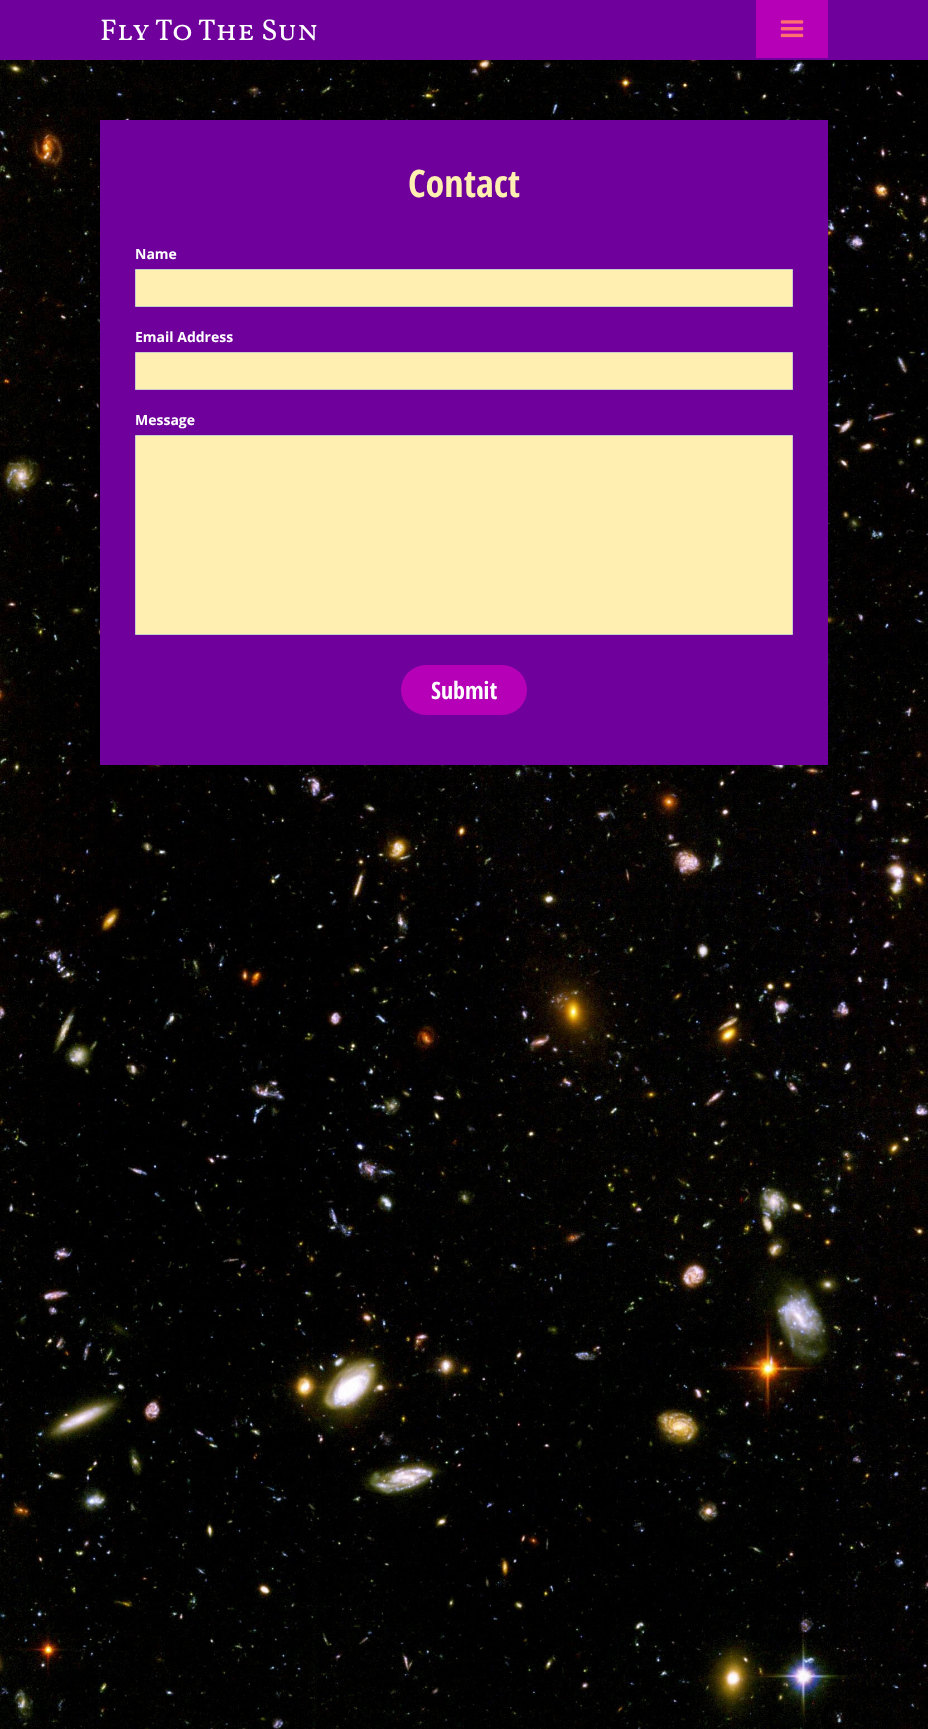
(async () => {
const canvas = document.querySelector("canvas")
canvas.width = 928
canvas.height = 1729
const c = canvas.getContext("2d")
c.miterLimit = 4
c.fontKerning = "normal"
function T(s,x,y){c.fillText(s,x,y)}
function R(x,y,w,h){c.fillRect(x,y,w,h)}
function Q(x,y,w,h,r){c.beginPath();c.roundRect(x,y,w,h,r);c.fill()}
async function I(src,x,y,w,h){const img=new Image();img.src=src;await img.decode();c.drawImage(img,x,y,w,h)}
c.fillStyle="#fff"
R(0,0,928,1729)
await I("1.png",0,60,928,1669)
c.fillStyle="#70009c"
R(0,0,928,60)
c.font="30px Vollkorn SC"
c.fillStyle="#fff"
T("Fly To The Sun",100,40)
c.fillStyle="#b500b8"
R(756,0,72,58)
await I("2.png",780,20,24,18)
c.fillStyle="#70009c"
R(100,120,728,645)
c.font="bold 38px Open Sans Condensed"
c.fillStyle="#ffefb0"
T("Contact",408,197)
c.font="bold 14px Open Sans"
c.fillStyle="#fff"
T("Name",135,259)
c.fillStyle="#ffefb0"
c.beginPath()
c.rect(135.5,269.5,657,37)
c.fill()
c.strokeStyle="#ccc"
c.stroke()
c.fillStyle="#fff"
T("Email Address",135,342)
c.fillStyle="#ffefb0"
c.beginPath()
c.rect(135.5,352.5,657,37)
c.fill()
c.stroke()
c.fillStyle="#fff"
T("Message",135,425)
c.fillStyle="#ffefb0"
c.beginPath()
c.rect(135.5,435.5,657,199)
c.fill()
c.stroke()
c.fillStyle="#b500b8"
Q(401,665,126,50,25)
c.font="bold 24px Open Sans Condensed"
c.fillStyle="#fff"
T("Submit",431,699)
})()
